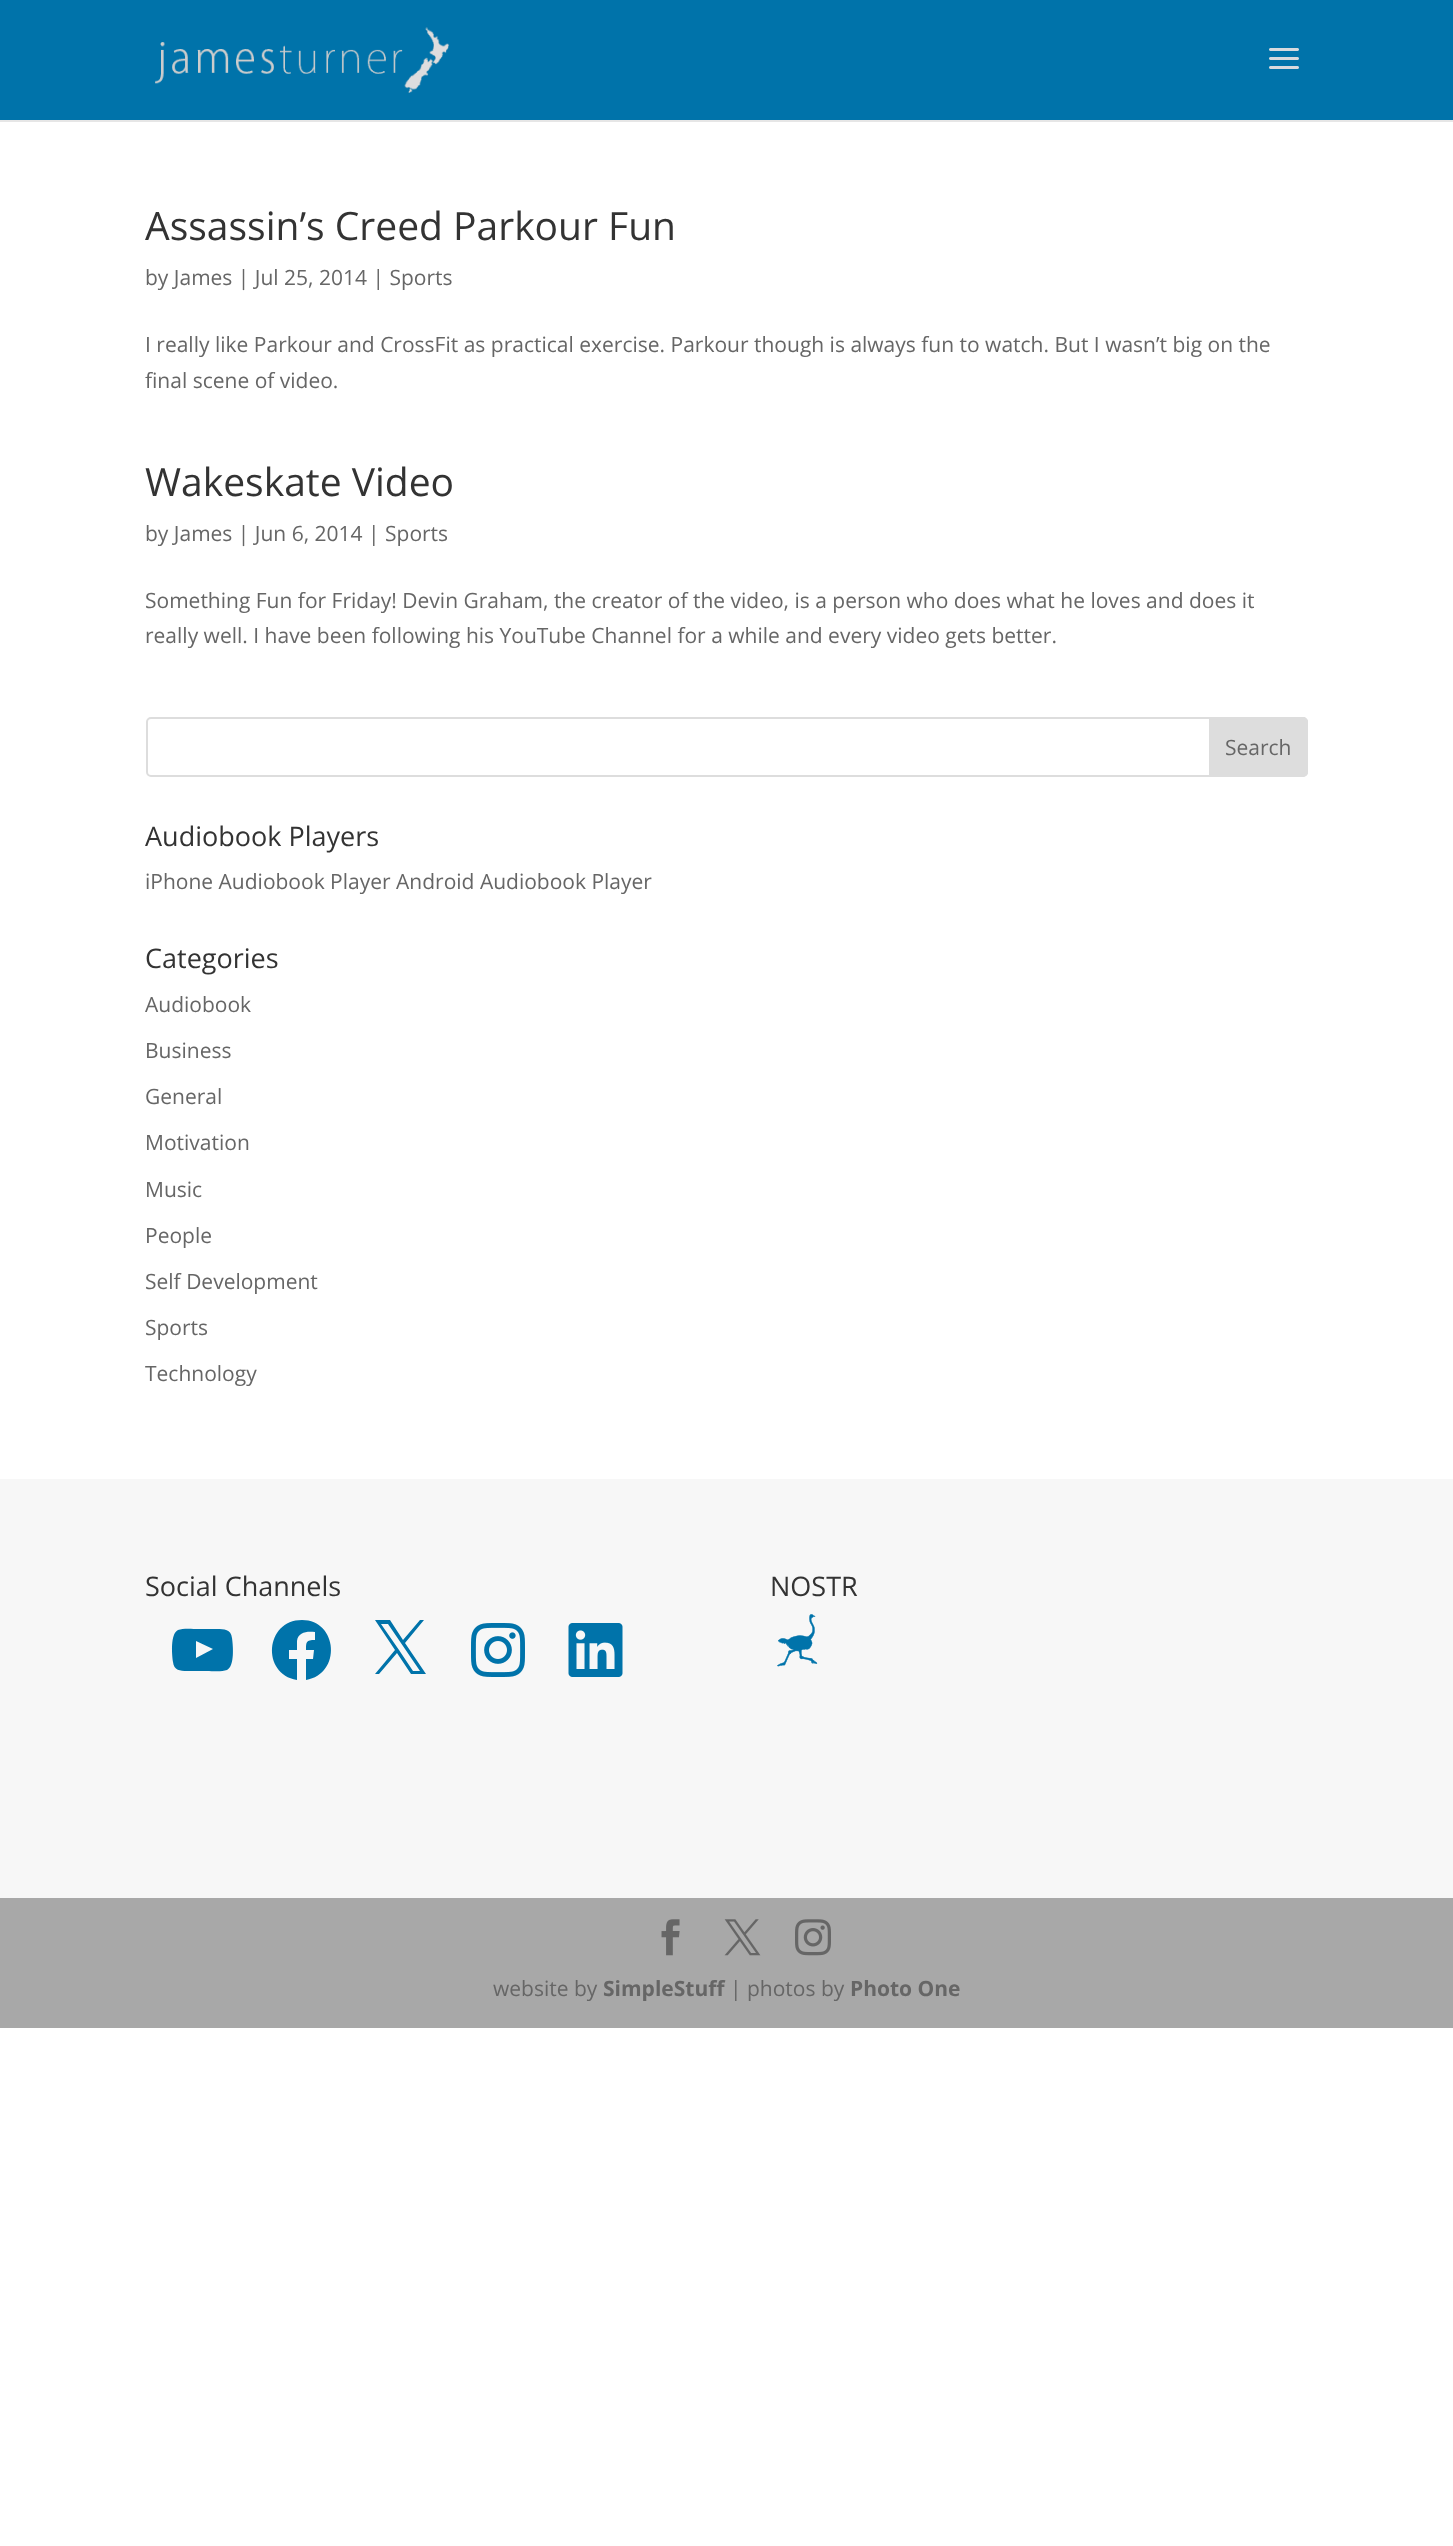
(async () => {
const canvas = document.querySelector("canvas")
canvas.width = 1453
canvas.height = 2546
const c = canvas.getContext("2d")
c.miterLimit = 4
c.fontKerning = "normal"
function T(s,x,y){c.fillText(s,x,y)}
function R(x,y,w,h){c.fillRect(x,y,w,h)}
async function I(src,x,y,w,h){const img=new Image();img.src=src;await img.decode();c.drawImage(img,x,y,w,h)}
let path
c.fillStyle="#fff"
R(0,0,1453,2546)
c.fillStyle="#e6e6e6"
path = new Path2D("M0 120v2h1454v-120v118z")
c.fill(path)
c.fillStyle="#0073aa"
R(0,0,1453,120)
await I("1.png",155,27,295,66)
await I("2.png",1269,48,30,21)
c.font="39px Open Sans"
c.fillStyle="#333"
T("Assassin’s Creed Parkour Fun",145,240)
c.font="21px Open Sans"
c.fillStyle="#666"
T("by James | Jul 25, 2014 | Sports",145,285)
T("I really like Parkour and CrossFit as practical exercise. Parkour though is always fun to watch. But I wasn’t big on the",145,352)
T("final scene of video.",145,388)
c.font="39px Open Sans"
c.fillStyle="#333"
T("Wakeskate Video",145,496)
c.font="21px Open Sans"
c.fillStyle="#666"
T("by James | Jun 6, 2014 | Sports",145,541)
T("Something Fun for Friday! Devin Graham, the creator of the video, is a person who does what he loves and does it",145,608)
T("really well. I have been following his YouTube Channel for a while and every video gets better.",145,643)
c.beginPath()
c.roundRect(147,718,1160,58,4)
c.strokeStyle="#ddd"
c.lineWidth=2
c.stroke()
c.fillStyle="#ddd"
c.beginPath()
c.roundRect(1210,718,97,58,[0,4,4,0])
c.fill()
c.stroke()
c.fillStyle="#666"
T("Search",1225,755)
c.font="27px Open Sans"
c.fillStyle="#333"
T("Audiobook Players",145,846)
c.font="21px Open Sans"
c.fillStyle="#666"
T("iPhone Audiobook Player Android Audiobook Player",145,889)
c.font="27px Open Sans"
c.fillStyle="#333"
T("Categories",145,968)
c.font="21px Open Sans"
c.fillStyle="#666"
T("Audiobook",145,1012)
T("Business",145,1058)
T("General",145,1104)
T("Motivation",145,1150)
T("Music",145,1197)
T("People",145,1243)
T("Self Development",145,1289)
T("Sports",145,1335)
T("Technology",145,1381)
c.fillStyle="#f7f7f7"
R(0,1479,1453,419)
c.font="27px Open Sans"
c.fillStyle="#333"
T("Social Channels",145,1596)
c.fillStyle="#0073aa"
path = new Path2D("M232 1638c-1-9-8-9-15-9h-19c-5 0-15-1-20 1c-8 4-6 25-5 32c1 10 10 9 18 9h16c5 0 15 1 20-1c8-4 6-25 5-32zm-36 20v-17l17 8z")
c.fill(path)
path = new Path2D("M302 1620c-37 0-41 54-5 60v-21h-8v-9h8v-9c1-9 10-10 18-9v8c-9 0-9 2-9 10h8l-1 9h-7v21c36-6 32-60-4-60z")
c.fill(path)
path = new Path2D("M405 1643l19-23h-4l-17 20l-13-20h-15l20 30l-20 24h4l18-21l14 21h15zm-6 7l-18-26h7l32 47h-7z")
c.fill(path)
await I("3.png",471,1623,54,54)
await I("4.png",568,1623,55,54)
c.fillStyle="#333"
T("NOSTR",770,1596)
await I("5.png",777,1614,41,53)
c.fillStyle="#a8a8a8"
R(0,1898,1453,130)
await I("6.png",661,1919,19,37)
await I("7.png",724,1919,37,37)
await I("8.png",795,1919,36,37)
c.font="21px Open Sans"
c.fillStyle="#666"
T("website by",493,1996)
c.font="bold 21px Open Sans"
T("SimpleStuff",603,1996)
c.font="21px Open Sans"
T("| photos by",730,1996)
c.font="bold 21px Open Sans"
T("Photo One",850,1996)
})()
